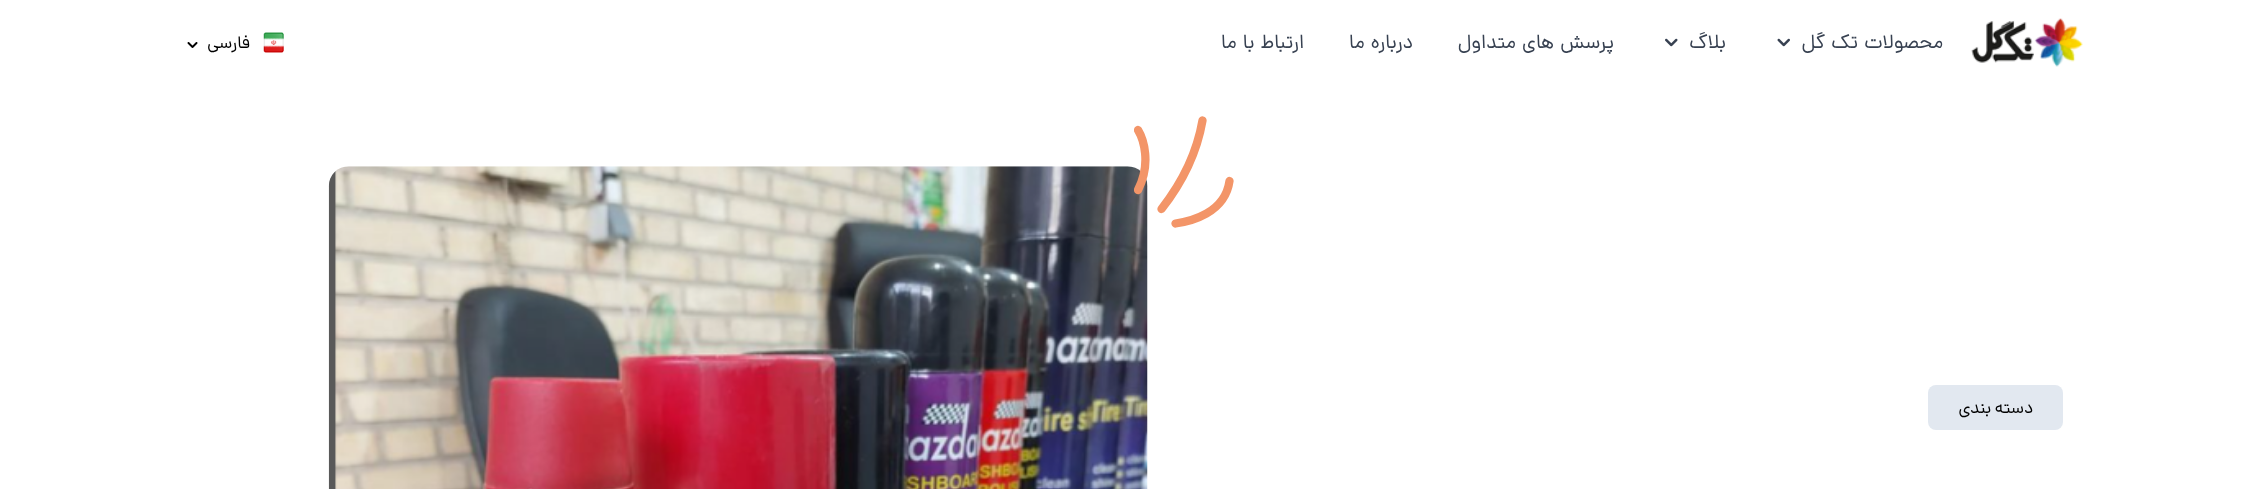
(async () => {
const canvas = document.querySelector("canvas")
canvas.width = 2255
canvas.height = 489
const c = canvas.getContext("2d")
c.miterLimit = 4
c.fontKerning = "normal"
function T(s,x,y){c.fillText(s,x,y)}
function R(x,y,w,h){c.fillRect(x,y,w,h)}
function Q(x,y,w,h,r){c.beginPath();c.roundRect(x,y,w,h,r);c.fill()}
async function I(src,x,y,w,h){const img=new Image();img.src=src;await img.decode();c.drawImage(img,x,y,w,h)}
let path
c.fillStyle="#fff"
R(0,0,2255,489)
await I("1.png",1971,18,112,49)
c.wordSpacing="1px"
c.direction="rtl"
c.font="20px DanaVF"
c.fillStyle="#374151"
T("محصولات تک گل",1943,48)
await I("2.png",1777,38,13,9)
c.wordSpacing="0px"
T("بلاگ",1726,48)
await I("3.png",1665,38,13,9)
c.wordSpacing="1px"
T("پرسش های متداول",1614,48)
T("درباره ما",1413,48)
T("ارتباط با ما",1304,48)
await I("4.png",263,32,21,21)
c.wordSpacing="0px"
c.font="17.5px DanaVF"
c.fillStyle="#000"
T("فارسی",250,48)
await I("5.png",187,42,11,6)
c.fillStyle="#e2e8f0"
Q(1928,385,135,45,8)
c.wordSpacing="-1px"
c.fillStyle="#000"
T("دسته بندی",2033,413)
await I("6.png",328,166,820,323)
c.save()
c.beginPath()
c.rect(1134,116,100,112)
c.clip()
path = new Path2D("M1138 130c5.5 9 13.5 33.5 0 60m23.5 19c9-11.5 33.5-45 41-88.5m-27 103c14.5-2 49.5-10 54-42.5")
c.strokeStyle="#f39568"
c.lineWidth=8.3
c.lineCap="round"
c.stroke(path)
c.restore()
})()
